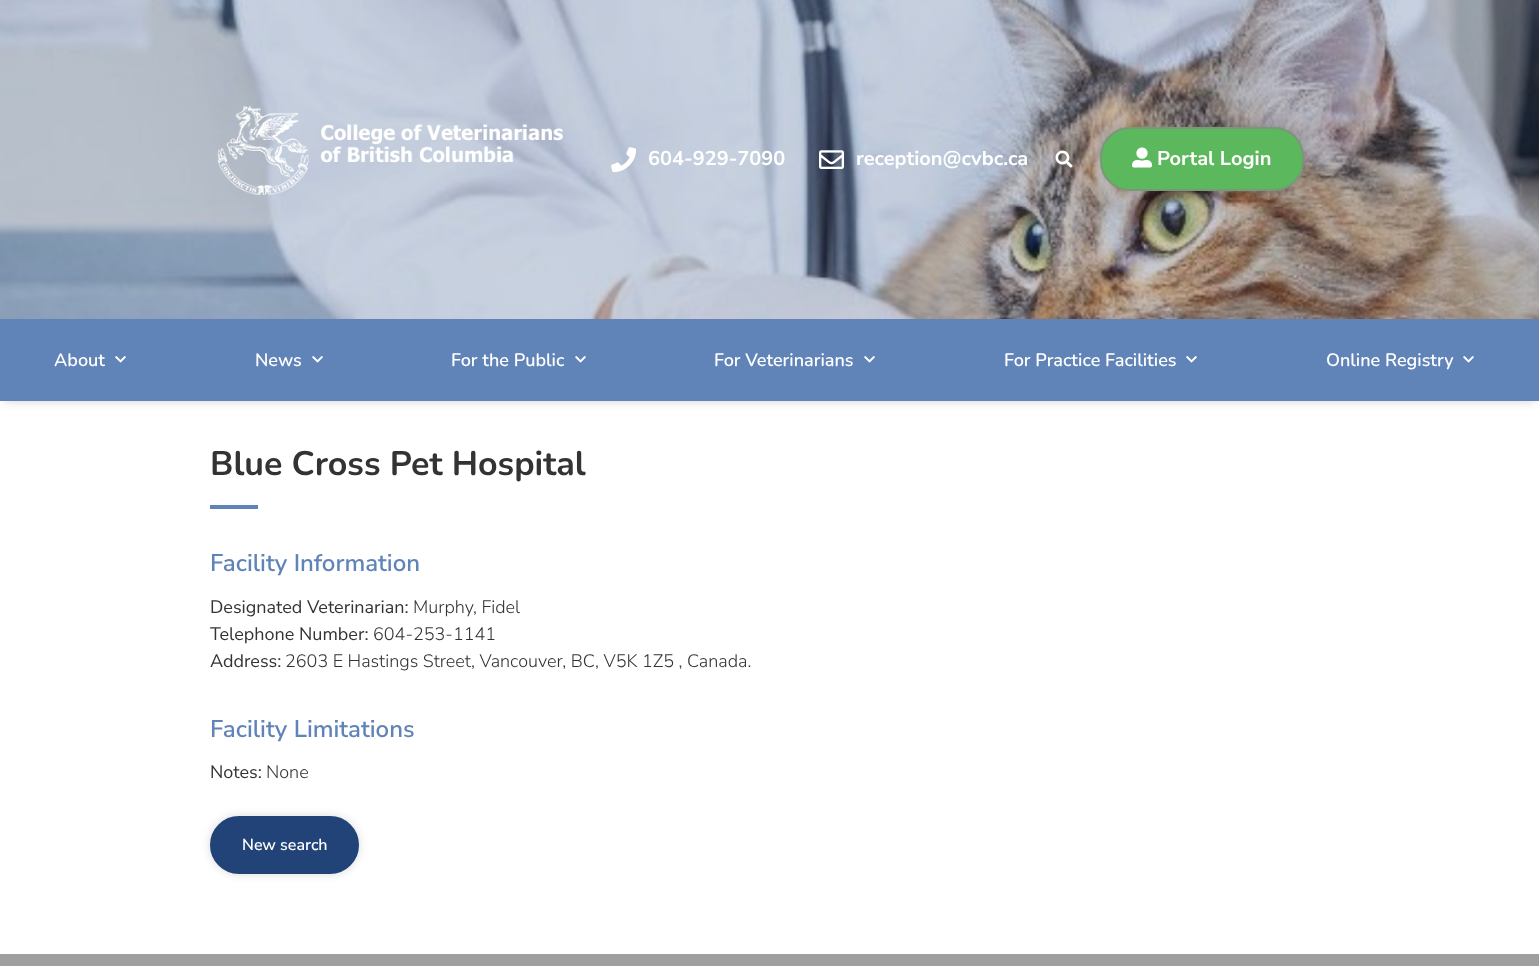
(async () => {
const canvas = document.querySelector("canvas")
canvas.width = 1539
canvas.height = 966
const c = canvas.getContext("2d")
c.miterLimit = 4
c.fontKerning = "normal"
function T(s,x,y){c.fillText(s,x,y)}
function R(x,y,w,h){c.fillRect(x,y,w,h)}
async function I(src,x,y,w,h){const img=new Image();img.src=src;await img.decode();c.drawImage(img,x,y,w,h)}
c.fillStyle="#fff"
R(0,0,1539,966)
await I("1.png",0,0,1539,319)
await I("2.png",217,106,346,89)
await I("3.png",611,147,25,26)
c.font="bold 20px Nunito Sans"
T("604-929-7090",648,165)
await I("4.png",819,150,25,19)
T("reception@cvbc.ca",856,165)
await I("5.png",1055,150,18,18)
c.fillStyle="#00000026"
c.filter="blur(5px)"
c.beginPath()
c.roundRect(1100,127,204,64,30)
c.fill()
c.filter="none"
c.fillStyle="#5cb85c"
c.beginPath()
c.roundRect(1101,128,202,62,29)
c.fill()
c.strokeStyle="#799877"
c.lineWidth=2
c.stroke()
await I("6.png",1132,147,20,21)
c.fillStyle="#fff"
T("Portal Login",1157,165)
c.fillStyle="#00000026"
c.filter="blur(5px)"
c.beginPath()
c.rect(4,328,1531,74)
c.fill()
c.filter="none"
c.fillStyle="#6083b8"
R(0,319,1539,82)
c.font="600 18px Nunito"
c.fillStyle="#fff"
T("About",54,366)
await I("7.png",115,356,11,7)
T("News",255,366)
await I("7.png",312,356,11,7)
T("For the Public",451,366)
await I("7.png",575,356,11,7)
T("For Veterinarians",714,366)
await I("7.png",864,356,11,7)
T("For Practice Facilities",1004,366)
await I("7.png",1186,356,11,7)
T("Online Registry",1326,366)
await I("7.png",1463,356,11,7)
c.font="bold 34px Nunito"
c.fillStyle="#333"
T("Blue Cross Pet Hospital",210,475)
c.fillStyle="#6083b8"
R(210,505,48,4)
c.font="600 24px Nunito Sans"
T("Facility Information",210,571)
c.font="18px Nunito Sans"
c.fillStyle="#333"
T("Designated Veterinarian:",210,613)
c.font="300 18px Nunito Sans"
T("Murphy, Fidel",413,613)
c.font="18px Nunito Sans"
T("Telephone Number:",210,640)
c.font="300 18px Nunito Sans"
T("604-253-1141",373,640)
c.font="18px Nunito Sans"
T("Address:",210,667)
c.font="300 18px Nunito Sans"
T("2603 E Hastings Street, Vancouver, BC, V5K 1Z5 , Canada.",285,667)
c.font="600 24px Nunito Sans"
c.fillStyle="#6083b8"
T("Facility Limitations",210,737)
c.font="18px Nunito Sans"
c.fillStyle="#333"
T("Notes:",210,778)
c.font="300 18px Nunito Sans"
T("None",266,778)
c.fillStyle="#00000026"
c.filter="blur(5px)"
c.beginPath()
c.roundRect(210,816,149,58,29)
c.fill()
c.filter="none"
c.fillStyle="#214378"
c.beginPath()
c.roundRect(211,817,147,56,28)
c.fill()
c.strokeStyle="#214378"
c.stroke()
c.font="600 16px Nunito Sans"
c.fillStyle="#fff"
T("New search",242,850)
c.fillStyle="#9d9fa1"
R(0,954,1539,12)
})()
